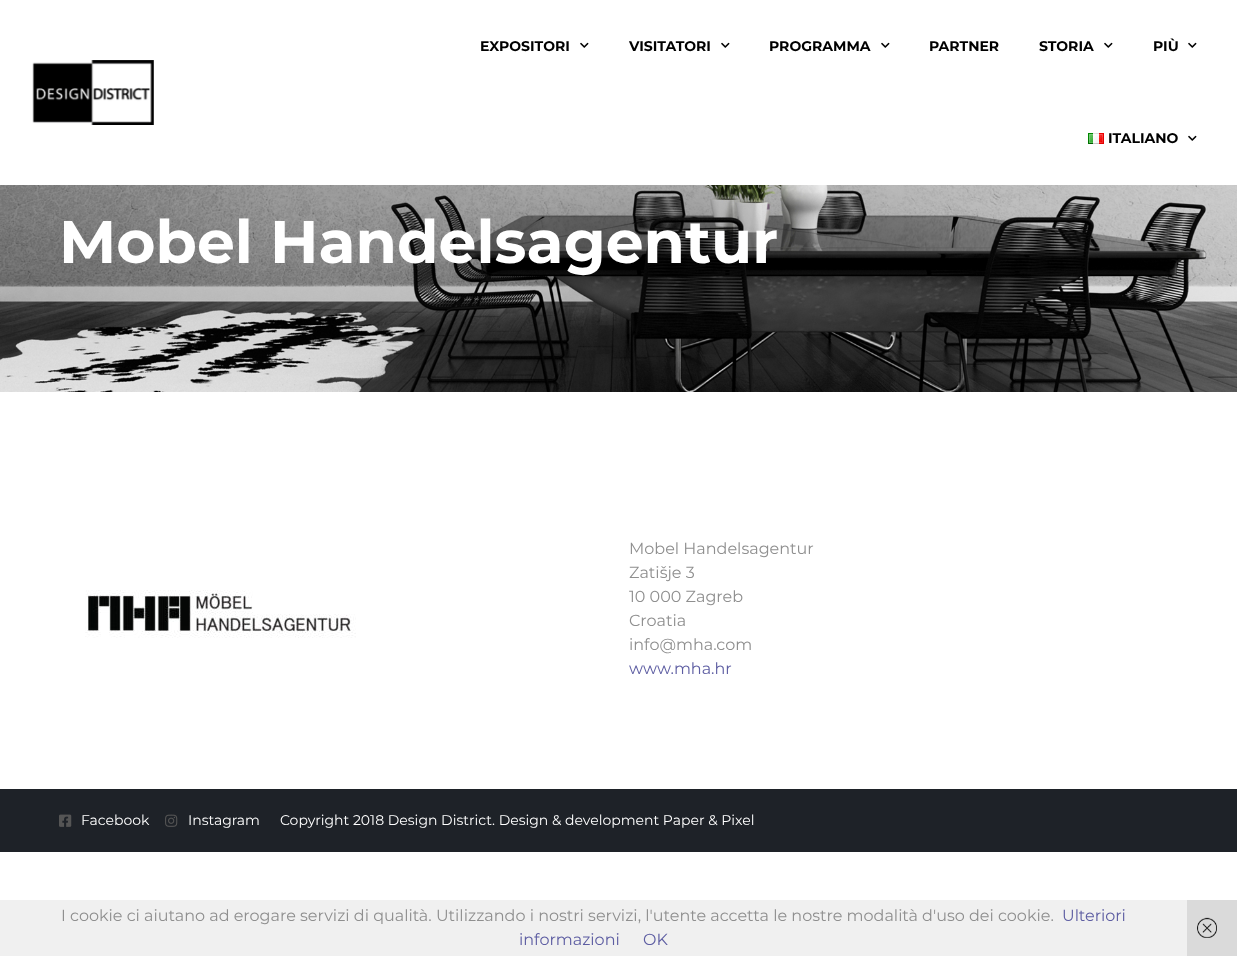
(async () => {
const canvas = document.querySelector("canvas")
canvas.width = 1237
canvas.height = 956
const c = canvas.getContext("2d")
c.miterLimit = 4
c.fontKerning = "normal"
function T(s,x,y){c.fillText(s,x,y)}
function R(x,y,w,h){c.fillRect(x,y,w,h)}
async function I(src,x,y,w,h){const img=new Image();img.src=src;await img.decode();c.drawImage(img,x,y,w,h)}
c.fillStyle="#fff"
R(0,0,1237,956)
await I("1.png",32,60,122,65)
c.font="bold 14px Montserrat"
c.fillStyle="#000"
T("EXPOSITORI",480,51)
await I("2.png",580,42,9,6)
T("VISITATORI",629,51)
await I("2.png",721,42,9,6)
T("PROGRAMMA",769,51)
await I("2.png",881,42,9,6)
T("PARTNER",929,51)
T("STORIA",1039,51)
await I("2.png",1104,42,9,6)
T("PIÙ",1153,51)
await I("2.png",1188,42,9,6)
await I("3.png",1088,133,16,11)
T("ITALIANO",1108,143)
await I("2.png",1188,135,9,6)
await I("4.png",0,185,1237,207)
c.font="bold 60px Montserrat"
c.fillStyle="#fff"
T("Mobel Handelsagentur",59,263)
await I("5.png",85,590,271,48)
c.font="16px Montserrat"
c.fillStyle="#8f8f8f"
T("Mobel Handelsagentur",629,554)
T("Zatišje 3",629,578)
T("10 000 Zagreb",629,602)
T("Croatia",629,626)
T("info@mha.com",629,650)
c.fillStyle="#5d5da2"
T("www.mha.hr",629,674)
c.fillStyle="#1e2228"
R(0,789,1237,63)
await I("6.png",59,814,13,13)
c.font="14px Montserrat"
c.fillStyle="#fff"
T("Facebook",81,825)
await I("7.png",165,814,13,13)
T("Instagram",188,825)
T("Copyright 2018 Design District. Design & development Paper & Pixel",280,825)
c.fillStyle="#f0f0f0"
R(0,900,1187,56)
c.font="16px Montserrat"
c.fillStyle="#8f8f8f"
T("I cookie ci aiutano ad erogare servizi di qualità. Utilizzando i nostri servizi, l'utente accetta le nostre modalità d'uso dei cookie.",61,921)
c.fillStyle="#5d5da2"
T("Ulteriori",1062,921)
T("informazioni",519,945)
T("OK",643,945)
c.fillStyle="#dadada"
R(1187,900,50,56)
await I("8.png",1197,917,20,21)
})()
